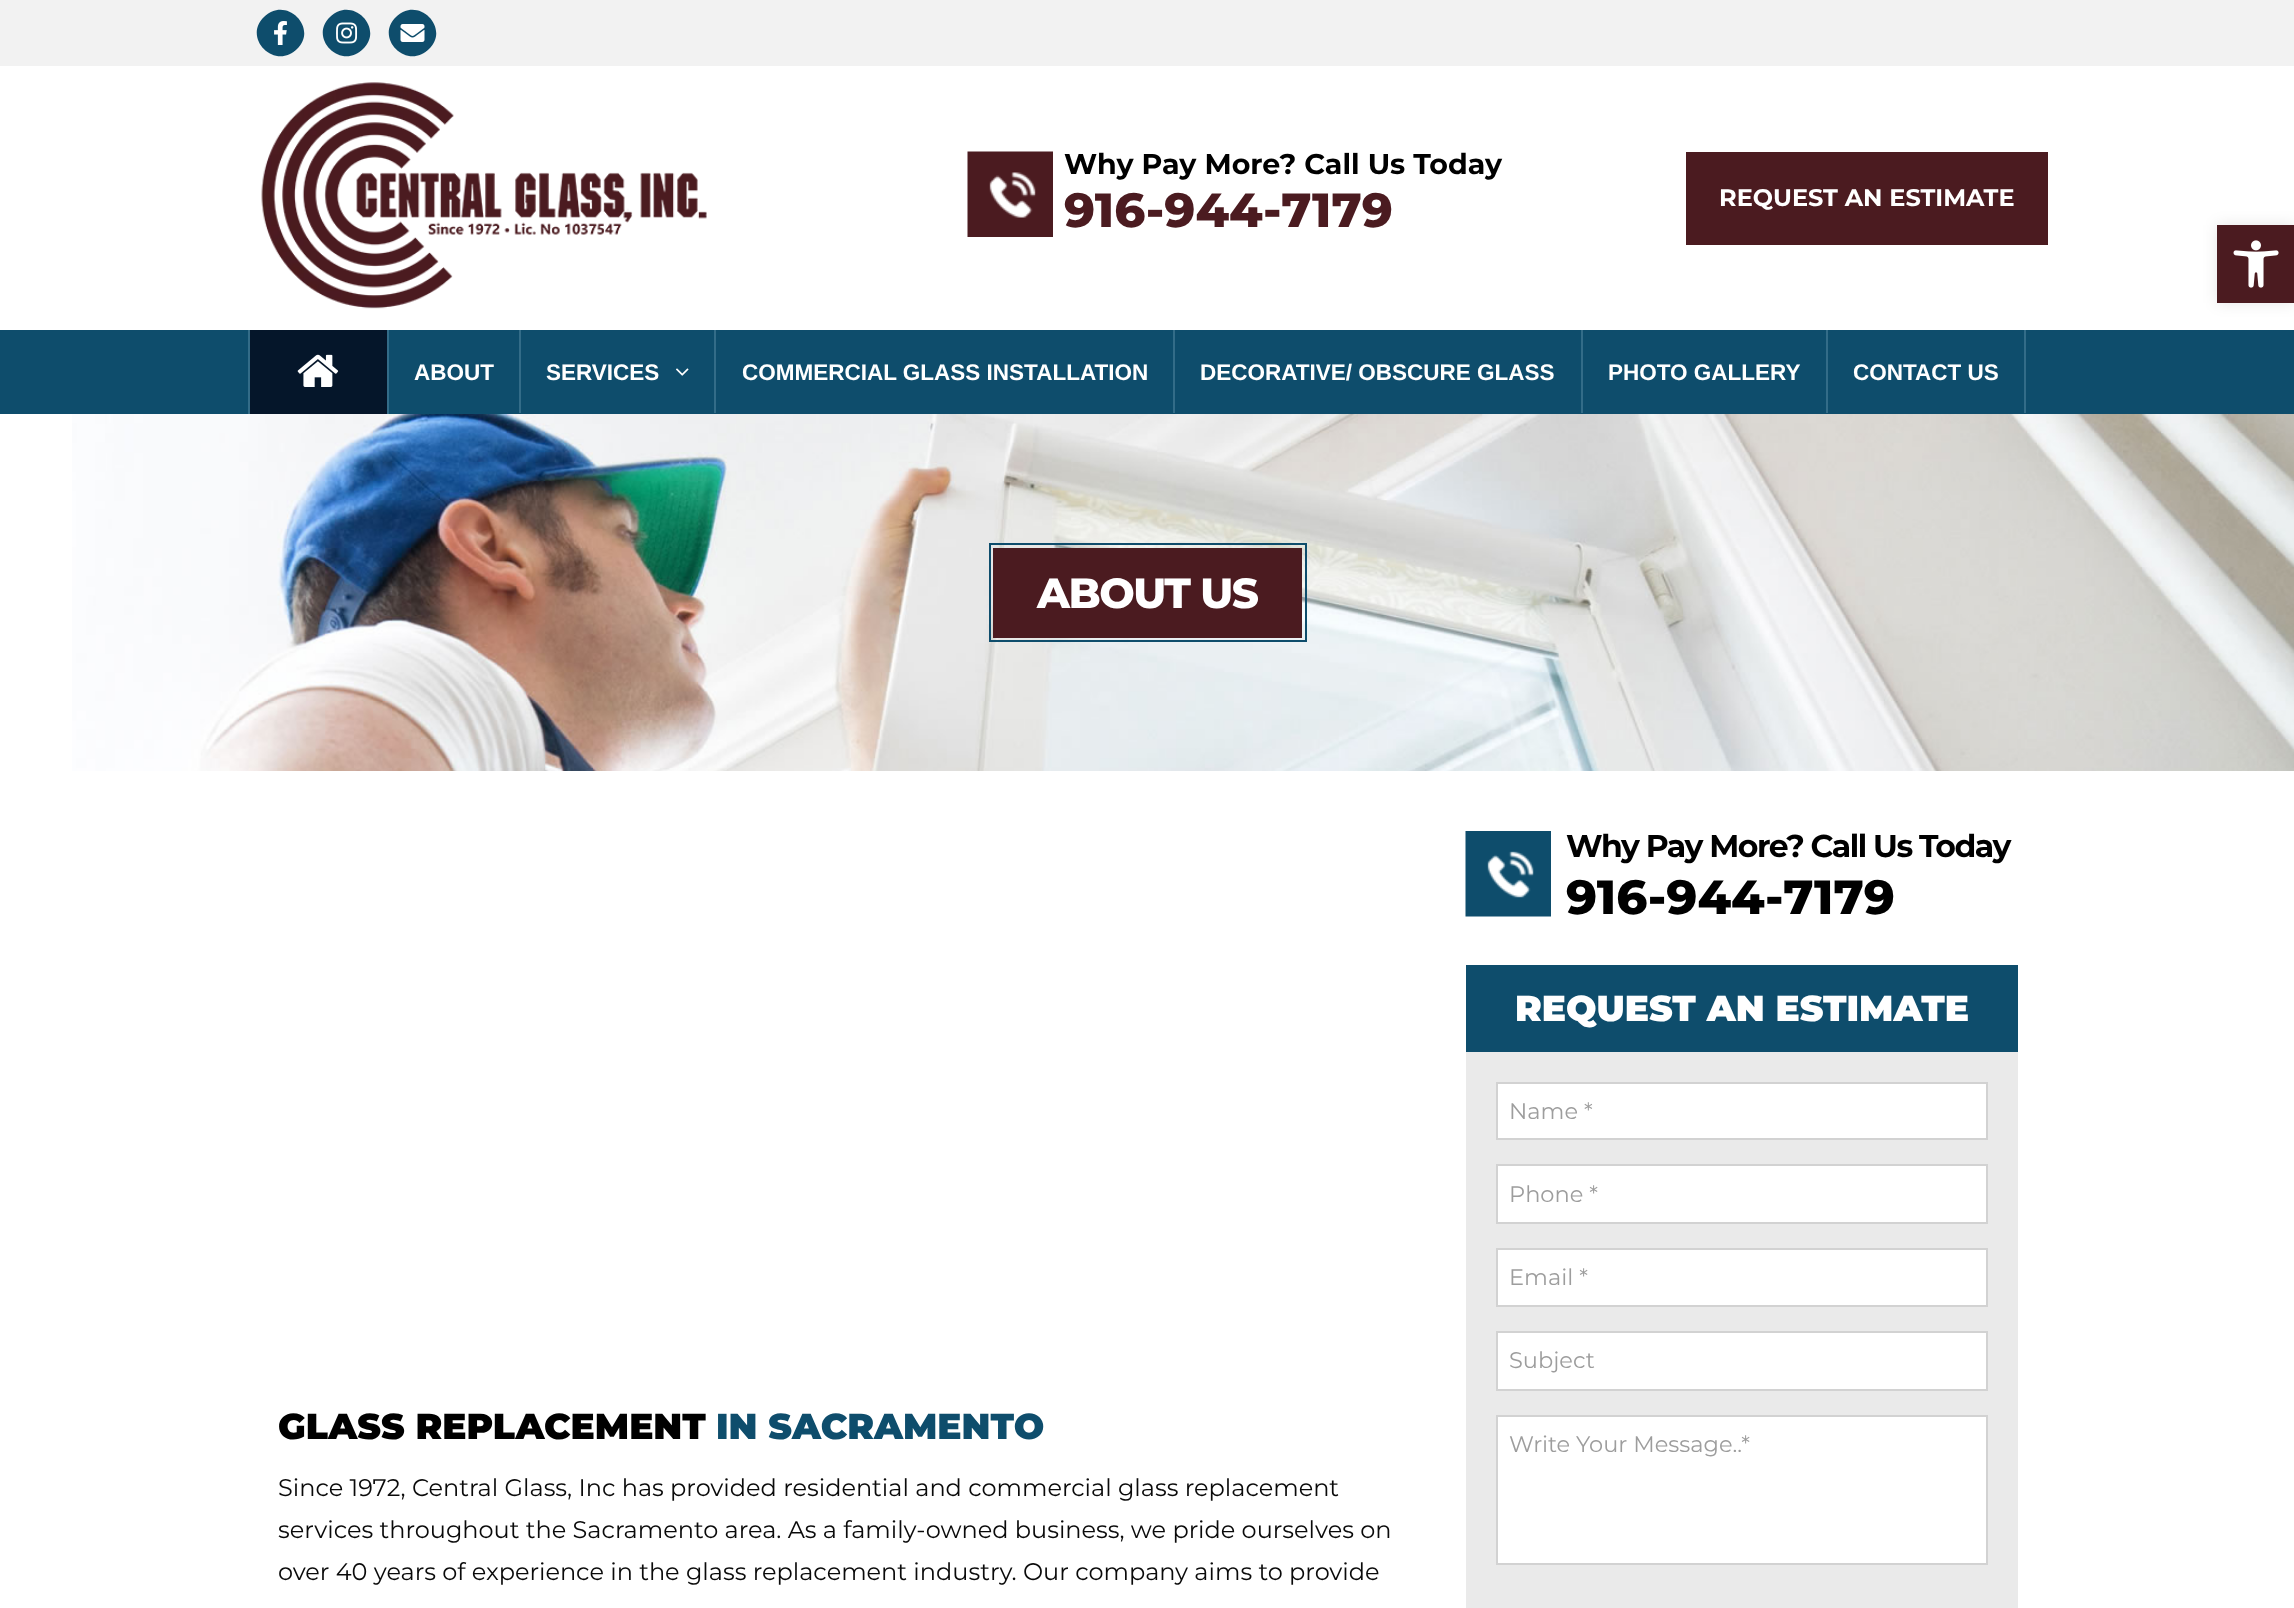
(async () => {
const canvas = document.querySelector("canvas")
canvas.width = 2294
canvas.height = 1608
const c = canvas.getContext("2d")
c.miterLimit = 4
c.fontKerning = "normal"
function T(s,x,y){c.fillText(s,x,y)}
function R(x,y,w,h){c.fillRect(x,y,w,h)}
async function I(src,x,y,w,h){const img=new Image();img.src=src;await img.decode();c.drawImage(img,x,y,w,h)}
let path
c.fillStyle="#fff"
R(0,0,2294,1608)
c.fillStyle="#f2f2f2"
R(0,0,2294,66)
c.fillStyle="#0e4d6c"
path = new Path2D("M264 17c22-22 55 11 33 32c-22 22-55-11-33-32z")
c.fill(path)
await I("1.png",274,21,13,24)
path = new Path2D("M330 17c22-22 55 11 33 32c-22 22-55-11-33-32z")
c.fill(path)
await I("2.png",336,22,22,22)
path = new Path2D("M396 17c22-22 55 11 33 32c-22 22-55-11-33-32z")
c.fill(path)
await I("3.png",400,24,25,18)
await I("4.png",261,82,446,227)
await I("5.png",967,151,86,86)
c.font="bold 28.5px Montserrat"
c.fillStyle="#000"
T("Why Pay More? Call Us Today",1064,174)
c.font="800 48px Montserrat"
c.fillStyle="#4b1b20"
T("916-944-7179",1064,227)
R(1686,152,362,93)
c.font="bold 24px Montserrat"
c.fillStyle="#fff"
T("REQUEST AN ESTIMATE",1719,206)
c.fillStyle="#0e4d6c"
R(0,330,2294,84)
c.fillStyle="#05162a"
R(250,330,137,84)
c.fillStyle="#336c88"
R(387,330,2,84)
R(248,330,2,84)
await I("6.png",297,354,42,33)
R(519,330,2,83)
c.font="bold 22.5px Liberation Sans"
c.fillStyle="#fff"
T("ABOUT",414,380)
c.fillStyle="#336c88"
R(714,330,2,83)
c.fillStyle="#fff"
T("SERVICES",546,380)
await I("7.png",676,368,13,8)
c.fillStyle="#336c88"
R(1173,330,2,83)
c.fillStyle="#fff"
T("COMMERCIAL GLASS INSTALLATION",742,380)
c.fillStyle="#336c88"
R(1581,330,2,83)
c.fillStyle="#fff"
T("DECORATIVE/ OBSCURE GLASS",1200,380)
c.fillStyle="#336c88"
R(1826,330,2,83)
c.fillStyle="#fff"
T("PHOTO GALLERY",1608,380)
c.fillStyle="#336c88"
R(2024,330,2,83)
c.fillStyle="#fff"
T("CONTACT US",1853,380)
await I("8.png",72,414,2222,357)
c.strokeStyle="#0e4d6c"
c.lineWidth=2
c.strokeRect(990,544,316,97)
c.fillStyle="#4b1b20"
R(993,548,309,90)
c.letterSpacing="-1.5px"
c.font="800 42px Montserrat"
c.fillStyle="#fff"
T("ABOUT US",1037,608)
await I("9.png",1465,831,86,86)
c.font="bold 31.5px Montserrat"
c.fillStyle="#000"
T("Why Pay More? Call Us Today",1566,857)
c.letterSpacing="0px"
c.font="800 48px Montserrat"
T("916-944-7179",1566,914)
c.fillStyle="#eaeaea"
R(1466,1052,552,556)
c.fillStyle="#0e4d6c"
R(1466,965,552,87)
c.font="900 36px Montserrat"
c.fillStyle="#fff"
T("REQUEST AN ESTIMATE",1515,1021)
c.beginPath()
c.rect(1497,1083,490,56)
c.fill()
c.strokeStyle="#d2d2d2"
c.stroke()
c.font="22.5px Montserrat"
c.fillStyle="#9d9d9d"
T("Name *",1509,1119)
c.fillStyle="#fff"
c.beginPath()
c.rect(1497,1165,490,58)
c.fill()
c.stroke()
c.fillStyle="#9d9d9d"
T("Phone *",1509,1202)
c.fillStyle="#fff"
c.beginPath()
c.rect(1497,1249,490,57)
c.fill()
c.stroke()
c.fillStyle="#9d9d9d"
T("Email *",1509,1285)
c.fillStyle="#fff"
c.beginPath()
c.rect(1497,1332,490,58)
c.fill()
c.stroke()
c.fillStyle="#9d9d9d"
T("Subject",1509,1368)
c.fillStyle="#fff"
c.beginPath()
c.rect(1497,1416,490,148)
c.fill()
c.stroke()
c.fillStyle="#9d9d9d"
T("Write Your Message..*",1509,1452)
c.font="900 36px Montserrat"
c.fillStyle="#000"
T("GLASS REPLACEMENT",278,1439)
c.fillStyle="#0e4d6c"
T("IN SACRAMENTO",716,1439)
c.font="24px Montserrat"
c.fillStyle="#0a0a0a"
T("Since 1972, Central Glass, Inc has provided residential and commercial glass replacement",278,1496)
T("services throughout the Sacramento area. As a family-owned business, we pride ourselves on",278,1538)
T("over 40 years of experience in the glass replacement industry. Our company aims to provide",278,1580)
c.fillStyle="#0000001a"
c.filter="blur(7.5px)"
c.beginPath()
c.rect(2217,225,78,78)
c.fill()
c.filter="none"
c.fillStyle="#4b1b20"
R(2217,225,77,78)
await I("10.png",2233,240,46,48)
})()
